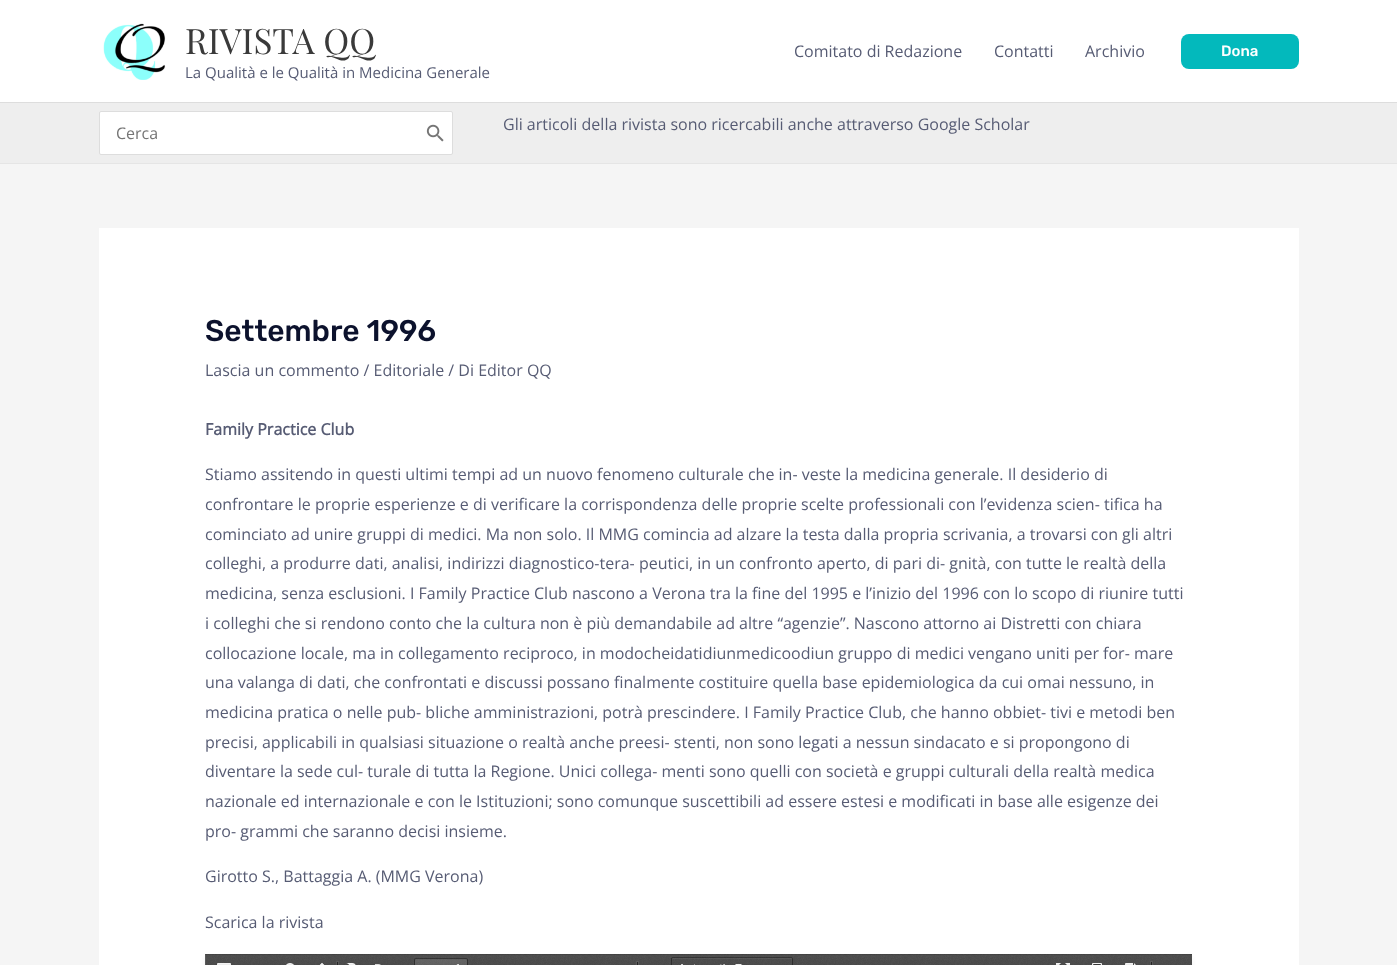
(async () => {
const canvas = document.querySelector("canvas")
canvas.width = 1397
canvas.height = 965
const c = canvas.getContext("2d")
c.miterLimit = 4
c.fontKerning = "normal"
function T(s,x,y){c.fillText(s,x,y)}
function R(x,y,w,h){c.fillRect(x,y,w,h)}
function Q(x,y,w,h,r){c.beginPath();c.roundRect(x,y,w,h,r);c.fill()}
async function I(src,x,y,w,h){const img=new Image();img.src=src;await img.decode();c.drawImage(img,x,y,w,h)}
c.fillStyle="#f5f5f5"
R(0,0,1397,965)
c.fillStyle="#fff"
R(0,0,1397,102)
c.fillStyle="#ddd"
R(0,102,1397,1)
await I("1.png",103,23,63,57)
c.font="35px Playfair Display"
c.fillStyle="#3a3a3a"
T("RIVISTA QQ",185,54)
c.font="15px Open Sans"
c.fillStyle="#575c74"
T("La Qualità e le Qualità in Medicina Generale",185,78)
c.font="16px Open Sans"
T("Comitato di Redazione",794,57)
T("Contatti",994,57)
T("Archivio",1085,57)
c.fillStyle="#03b9bc"
Q(1181,34,118,35,8)
c.font="300 15px Rubik"
c.fillStyle="#fff"
T("Dona",1221,56)
c.fillStyle="#eee"
R(0,103,1397,60)
c.fillStyle="#e5e5e5"
R(0,163,1397,1)
c.fillStyle="#fff"
c.beginPath()
c.roundRect(99.5,111.5,353,43,1.5)
c.fill()
c.strokeStyle="#ddd"
c.stroke()
c.font="16px Open Sans"
c.fillStyle="#757575"
T("Cerca",116,139)
await I("2.png",426,124,18,18)
c.fillStyle="#575c74"
T("Gli articoli della rivista sono ricercabili anche attraverso Google Scholar",503,130)
c.fillStyle="#fff"
R(99,228,1200,737)
c.font="300 30px Rubik"
c.fillStyle="#0c122d"
T("Settembre 1996",205,341)
c.font="16px Open Sans"
c.fillStyle="#575c74"
T("Lascia un commento / Editoriale / Di Editor QQ",205,376)
c.font="bold 16px Open Sans"
T("Family Practice Club",205,435)
c.font="16px Open Sans"
T("Stiamo assitendo in questi ultimi tempi ad un nuovo fenomeno culturale che in- veste la medicina generale. Il desiderio di",205,480)
T("confrontare le proprie esperienze e di verificare la corrispondenza delle proprie scelte professionali con l’evidenza scien- tifica ha",205,510)
T("cominciato ad unire gruppi di medici. Ma non solo. Il MMG comincia ad alzare la testa dalla propria scrivania, a trovarsi con gli altri",205,540)
T("colleghi, a produrre dati, analisi, indirizzi diagnostico-tera- peutici, in un confronto aperto, di pari di- gnità, con tutte le realtà della",205,569)
T("medicina, senza esclusioni. I Family Practice Club nascono a Verona tra la fine del 1995 e l’inizio del 1996 con lo scopo di riunire tutti",205,599)
T("i colleghi che si rendono conto che la cultura non è più demandabile ad altre “agenzie”. Nascono attorno ai Distretti con chiara",205,629)
T("collocazione locale, ma in collegamento reciproco, in modocheidatidiunmedicoodiun gruppo di medici vengano uniti per for- mare",205,659)
T("una valanga di dati, che confrontati e discussi possano finalmente costituire quella base epidemiologica da cui omai nessuno, in",205,688)
T("medicina pratica o nelle pub- bliche amministrazioni, potrà prescindere. I Family Practice Club, che hanno obbiet- tivi e metodi ben",205,718)
T("precisi, applicabili in qualsiasi situazione o realtà anche preesi- stenti, non sono legati a nessun sindacato e si propongono di",205,748)
T("diventare la sede cul- turale di tutta la Regione. Unici collega- menti sono quelli con società e gruppi culturali della realtà medica",205,777)
T("nazionale ed internazionale e con le Istituzioni; sono comunque suscettibili ad essere estesi e modificati in base alle esigenze dei",205,807)
T("pro- grammi che saranno decisi insieme.",205,837)
T("Girotto S., Battaggia A. (MMG Verona)",205,882)
T("Scarica la rivista",205,928)
c.fillStyle="#eee"
c.filter="blur(2.5px)"
c.beginPath()
c.rect(205,957,987,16)
c.fill()
c.filter="none"
await I("3.png",205,954,987,11)
})()
